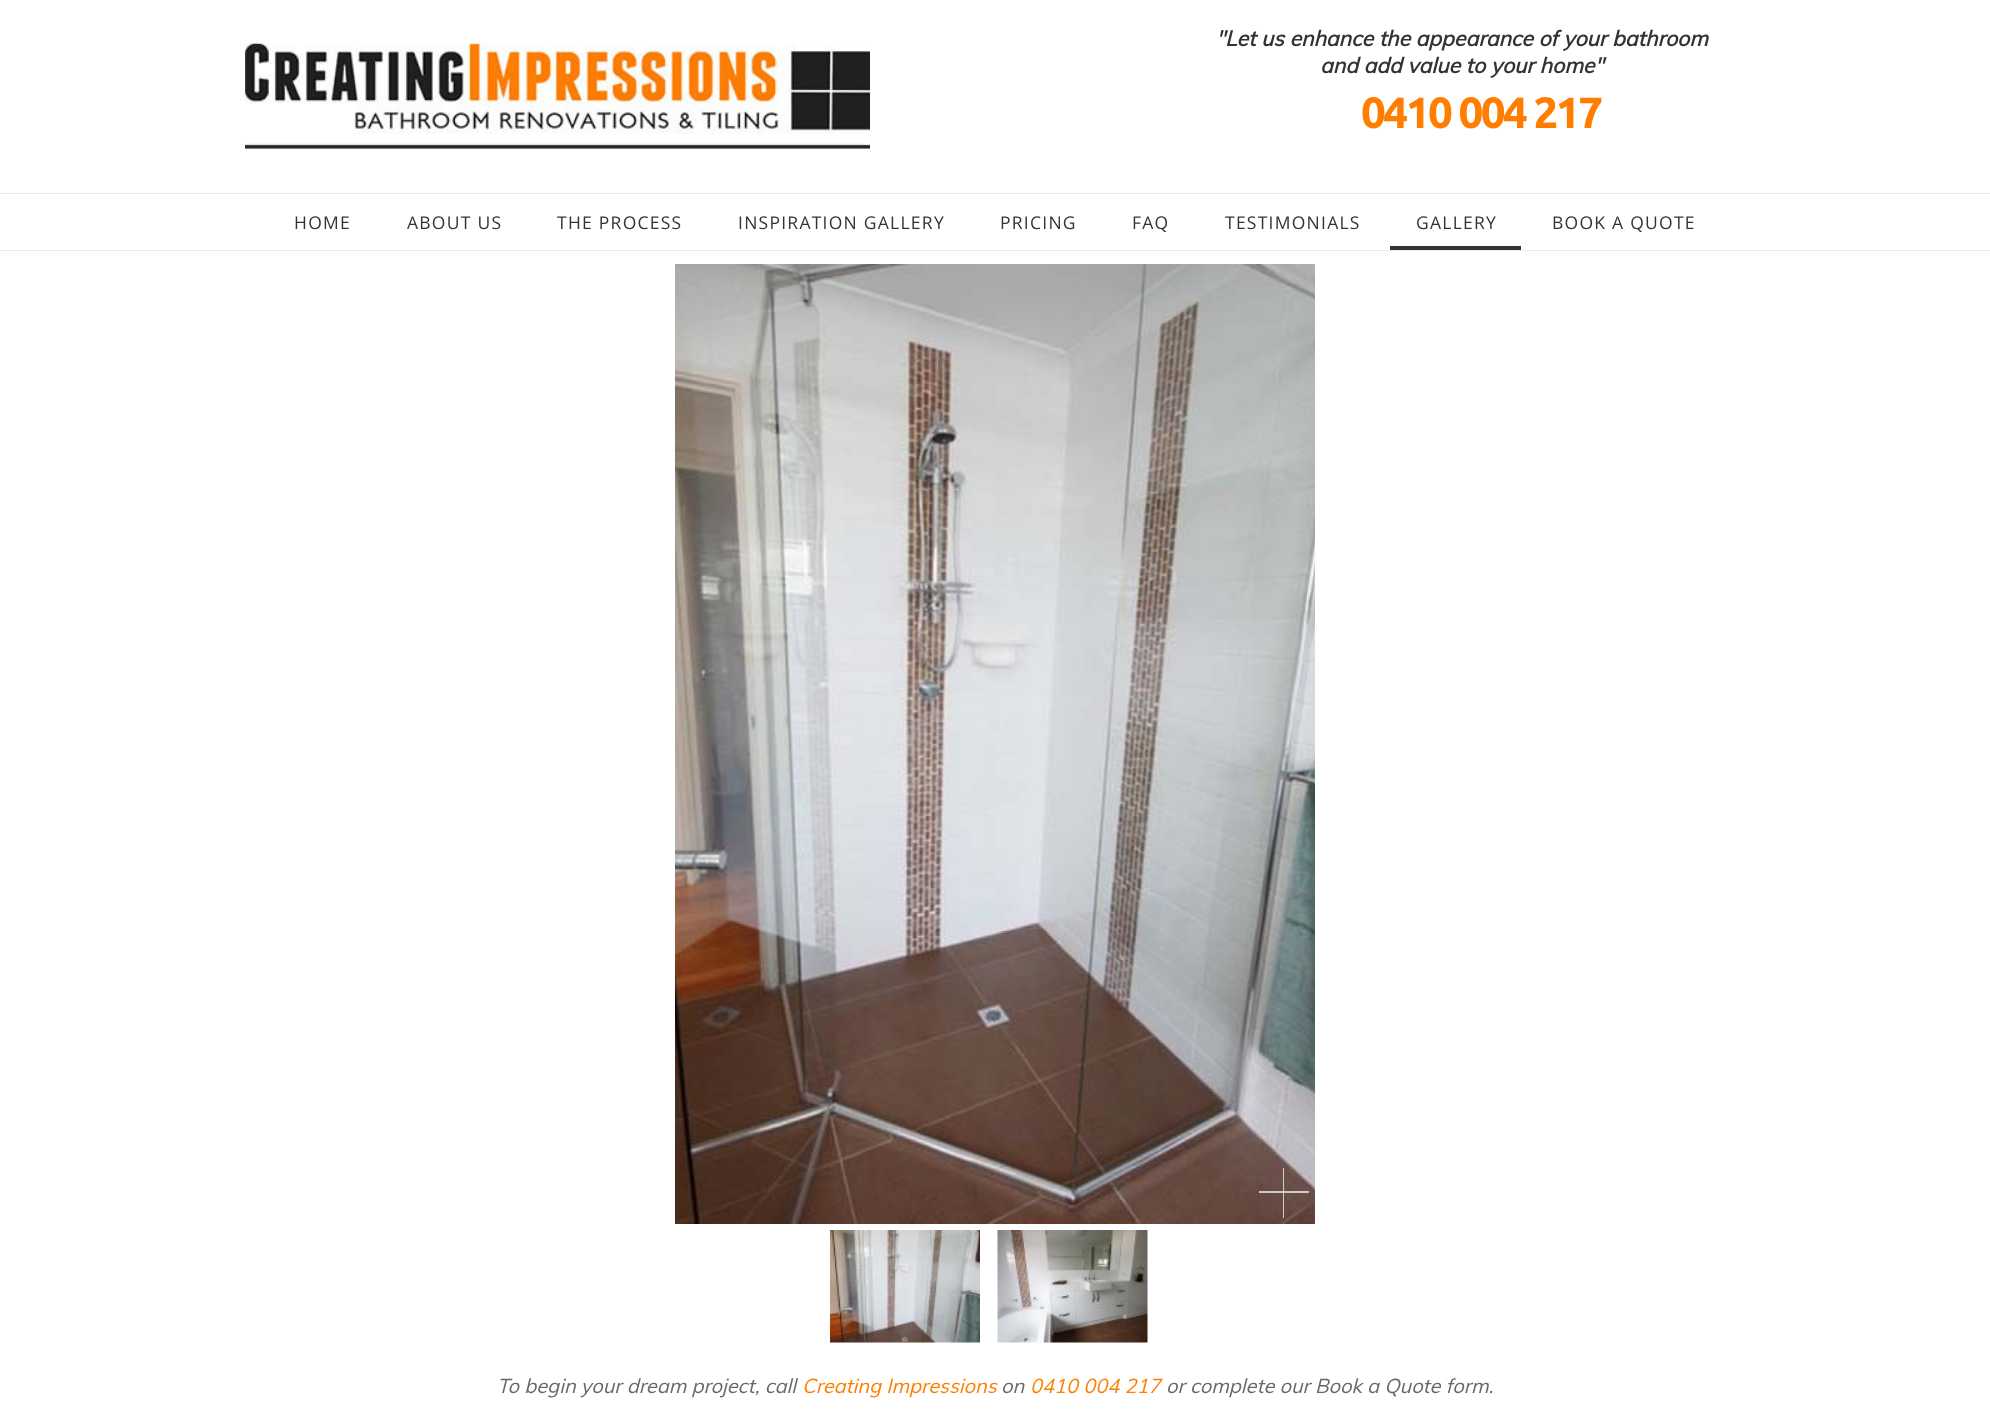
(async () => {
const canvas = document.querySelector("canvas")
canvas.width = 1990
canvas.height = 1424
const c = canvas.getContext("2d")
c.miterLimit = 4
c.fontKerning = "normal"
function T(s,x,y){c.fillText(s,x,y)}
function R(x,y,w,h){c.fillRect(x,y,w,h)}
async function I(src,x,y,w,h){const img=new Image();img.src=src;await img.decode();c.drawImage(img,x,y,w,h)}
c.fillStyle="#fff"
R(0,0,1990,1424)
await I("1.png",245,43,625,106)
c.font="italic bold 21.25px Muli"
c.fillStyle="#333"
T("\"Let us enhance the appearance of your bathroom",1216,46)
T("and add value to your home\"",1320,73)
c.letterSpacing="-2.5px"
c.font="bold 43.75px Ubuntu"
c.fillStyle="#ff7e00"
T("0410 004 217",1361,128)
c.fillStyle="#eaeaea"
R(0,193,1990,1)
R(0,250,1990,1)
c.letterSpacing="1.25px"
c.font="17.5px Open Sans"
c.fillStyle="#333"
T("HOME",294,229)
T("ABOUT US",407,229)
T("THE PROCESS",557,229)
T("INSPIRATION GALLERY",738,229)
T("PRICING",1000,229)
T("FAQ",1132,229)
T("TESTIMONIALS",1225,229)
R(1390,246,131,4)
T("GALLERY",1416,229)
T("BOOK A QUOTE",1552,229)
await I("2.png",675,264,640,960)
c.fillStyle="#ffffffb3"
R(1283,1168,1,50)
R(1259,1191,50,2)
await I("3.png",830,1230,150,113)
await I("4.png",997,1230,151,113)
c.letterSpacing="0px"
c.font="italic 20px Muli"
c.fillStyle="#686868"
T("To begin your dream project, call",497,1393)
c.fillStyle="#ff7e00"
T("Creating Impressions",802,1393)
c.fillStyle="#686868"
T("on",1001,1393)
c.fillStyle="#ff7e00"
T("0410 004 217",1030,1393)
c.fillStyle="#686868"
T("or complete our Book a Quote form.",1166,1393)
})()
